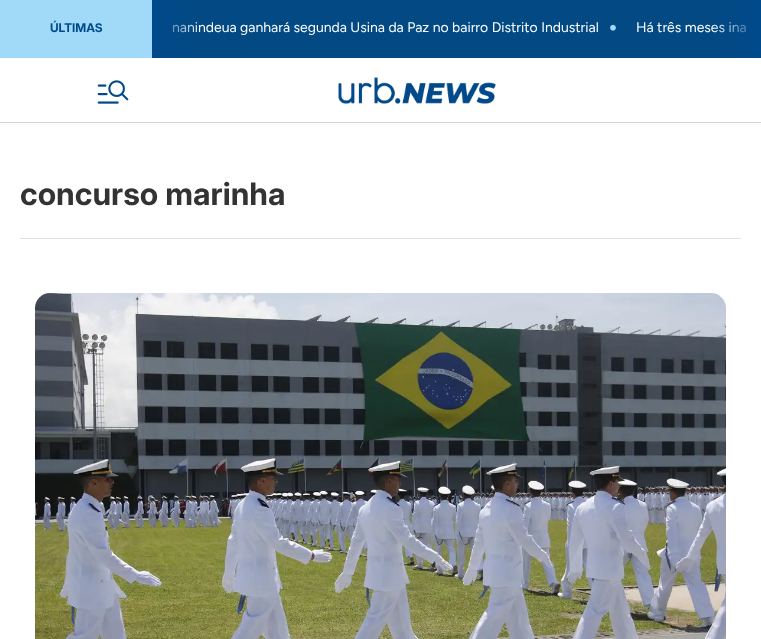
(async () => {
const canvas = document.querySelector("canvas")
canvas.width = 761
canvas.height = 639
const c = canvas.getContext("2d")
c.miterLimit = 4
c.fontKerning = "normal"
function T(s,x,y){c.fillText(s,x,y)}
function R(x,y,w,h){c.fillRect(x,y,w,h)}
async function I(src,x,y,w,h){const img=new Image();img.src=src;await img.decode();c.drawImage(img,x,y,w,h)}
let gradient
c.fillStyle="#fff"
R(0,0,761,639)
c.fillStyle="#a0daf8"
R(0,0,152,58)
c.font="bold 12px Inter"
c.fillStyle="#004a8b"
T("ÚLTIMAS",50,32)
c.fillStyle="#034a84"
R(152,0,609,58)
c.font="14px Figtree"
c.fillStyle="#fff"
T("nanindeua ganhará segunda Usina da Paz no bairro Distrito Industrial",172,32)
gradient = c.createLinearGradient(152,22,202,22)
gradient.addColorStop(0,"#00498a")
gradient.addColorStop(1,"#00498a00")
c.fillStyle = gradient
R(152,0,49,58)
c.fillStyle="#fff"
T("Há três meses ina",636,32)
gradient = c.createLinearGradient(761,22,711,22)
gradient.addColorStop(0,"#00498a")
gradient.addColorStop(1,"#00498a00")
c.fillStyle = gradient
R(712,0,49,58)
await I("1.png",610,24,6,7)
await I("2.png",97,80,32,24)
await I("3.png",338,77,158,27)
c.fillStyle="#d6d4d4"
R(0,122,761,1)
c.font="bold 31px Inter"
c.fillStyle="#333"
T("concurso marinha",20,205)
c.fillStyle="#e1dfdf"
R(20,238,721,1)
await I("4.png",35,293,691,346)
})()
